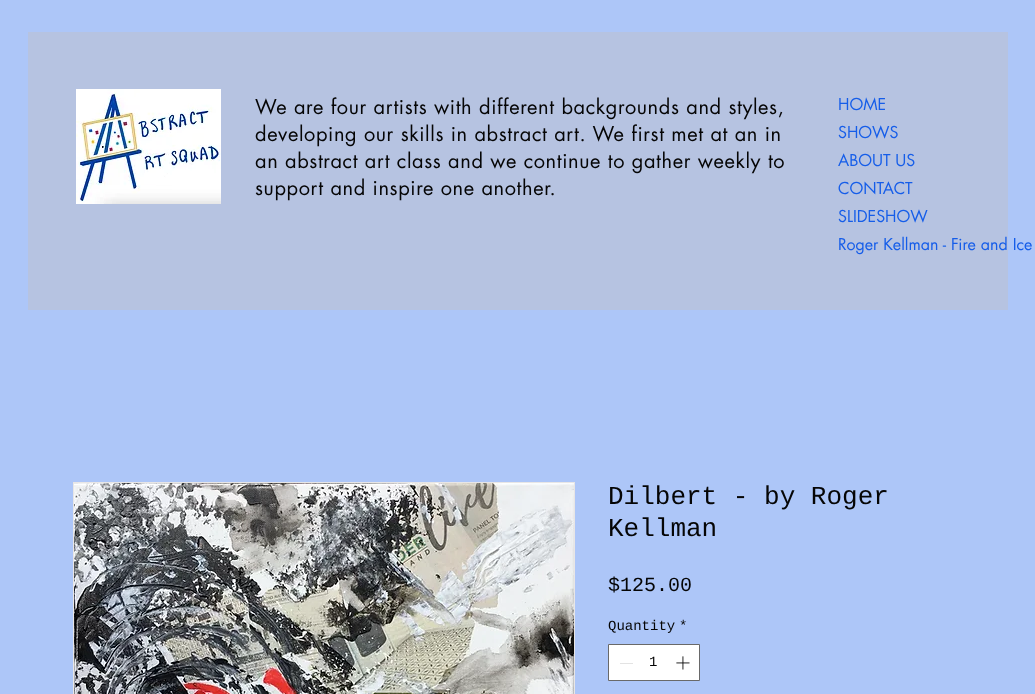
(async () => {
const canvas = document.querySelector("canvas")
canvas.width = 1035
canvas.height = 694
const c = canvas.getContext("2d")
c.miterLimit = 4
c.fontKerning = "normal"
function T(s,x,y){c.fillText(s,x,y)}
function R(x,y,w,h){c.fillRect(x,y,w,h)}
async function I(src,x,y,w,h){const img=new Image();img.src=src;await img.decode();c.drawImage(img,x,y,w,h)}
c.fillStyle="#adc6f8"
R(0,0,1035,694)
c.fillStyle="#b6c3e1"
R(28,32,980,278)
await I("1.png",76,89,145,115)
c.letterSpacing="0.6px"
c.font="20px futura"
c.fillStyle="#050505"
T("We are four artists with different backgrounds and styles,",255,114)
T("developing our skills in abstract art. We first met at an in",255,141)
T("an abstract art class and we continue to gather weekly to",255,168)
T("support and inspire one another.",255,195)
c.letterSpacing="0px"
c.font="16px futura"
c.fillStyle="#155de9"
T("HOME",838,110)
T("SHOWS",838,138)
T("ABOUT US",838,166)
T("CONTACT",838,194)
T("SLIDESHOW",838,222)
T("Roger Kellman - Fire and Ice",838,250)
c.strokeStyle="#e8e6e6"
c.strokeRect(73.5,482.5,501,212)
await I("2.png",74,483,500,211)
c.font="26px Liberation Mono"
c.fillStyle="#050505"
T("Dilbert - by Roger",608,504)
T("Kellman",608,536)
c.font="20px Liberation Mono"
T("$125.00",608,591)
c.font="14px Liberation Mono"
T("Quantity",608,630)
T("*",679,630)
c.fillStyle="#fff"
c.beginPath()
c.rect(608.5,644.5,91,36)
c.fill()
c.strokeStyle="#696969"
c.stroke()
c.fillStyle="#e3e3e3"
R(620,663,13,1)
c.fillStyle="#050505"
T("1",649,666)
await I("3.png",676,656,14,14)
})()
